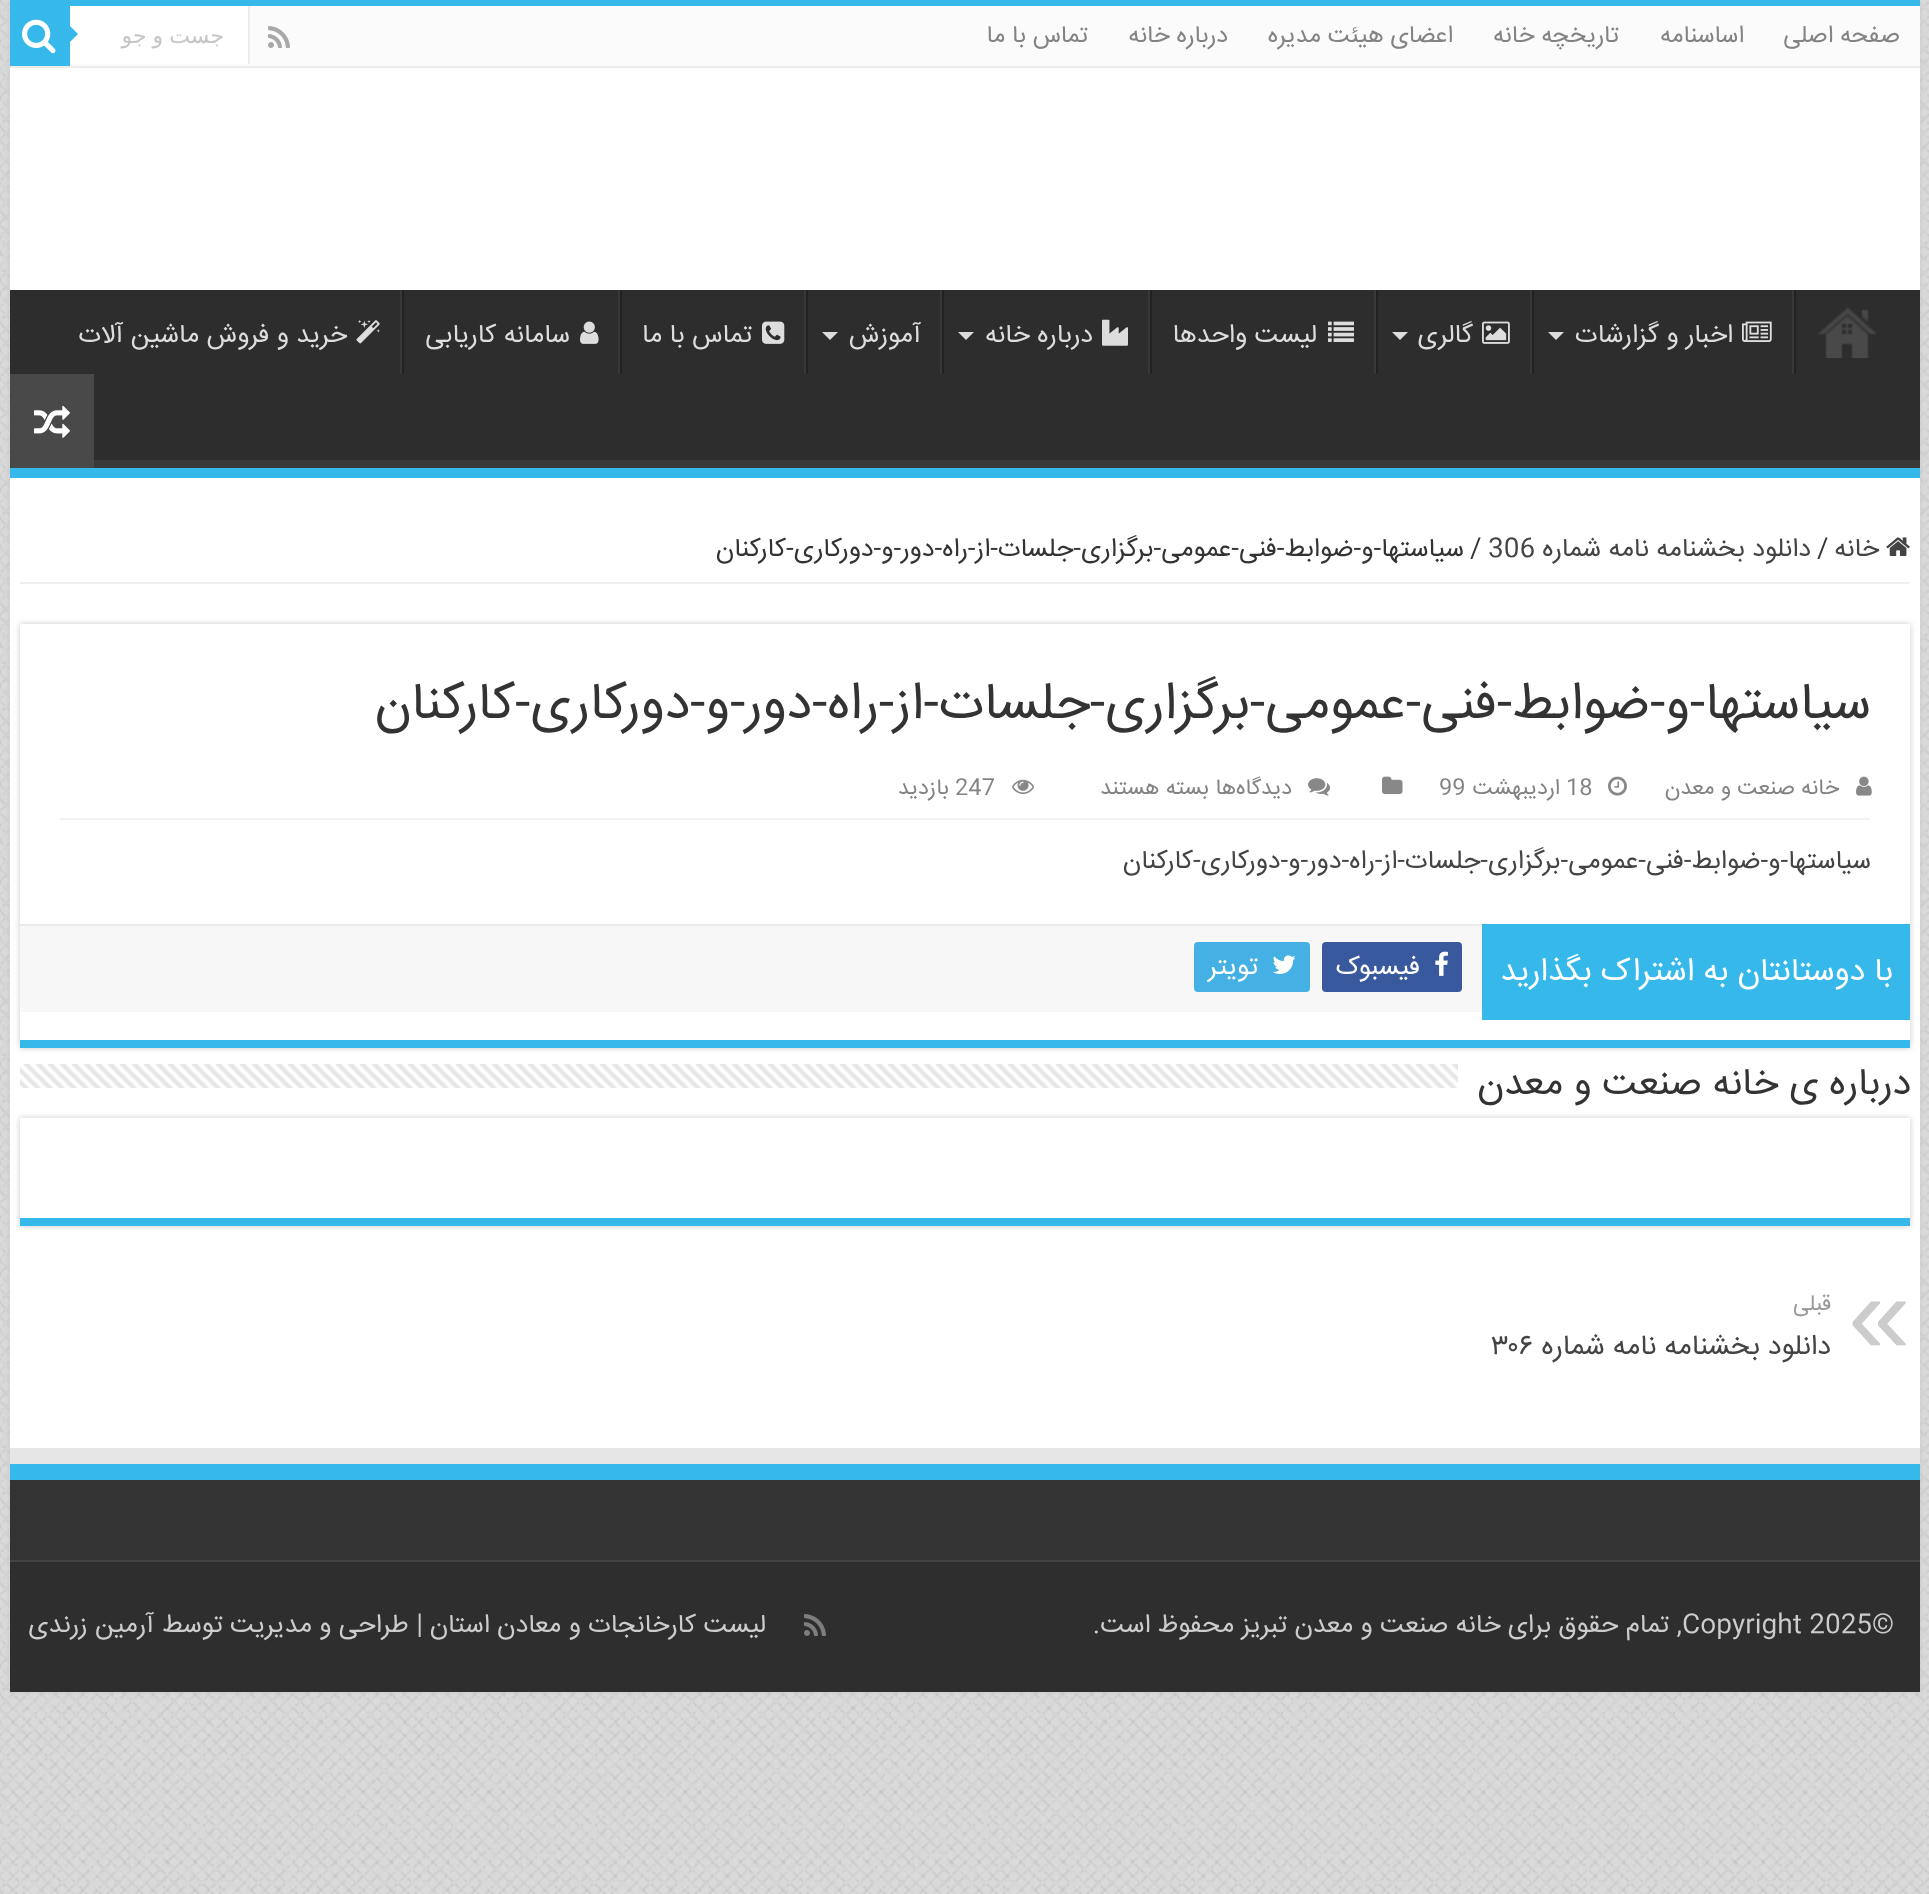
(async () => {
const canvas = document.querySelector("canvas")
canvas.width = 1929
canvas.height = 1894
const c = canvas.getContext("2d")
c.miterLimit = 4
c.fontKerning = "normal"
function T(s,x,y){c.fillText(s,x,y)}
function R(x,y,w,h){c.fillRect(x,y,w,h)}
function Q(x,y,w,h,r){c.beginPath();c.roundRect(x,y,w,h,r);c.fill()}
async function I(src,x,y,w,h){const img=new Image();img.src=src;await img.decode();c.drawImage(img,x,y,w,h)}
let path
c.fillStyle="#d1d1d1"
R(0,0,1929,1894)
await I("1.png",0,0,1929,1894)
c.fillStyle="#cacaca"
c.filter="blur(3px)"
c.beginPath()
c.rect(10,0,1910,1692)
c.fill()
c.filter="none"
c.fillStyle="#fff"
R(10,68,1910,1380)
c.fillStyle="#37b8eb"
R(10,0,1910,6)
c.fillStyle="#fbfbfb"
R(70,6,1850,60)
c.fillStyle="#ececec"
R(10,66,1910,2)
c.direction="rtl"
c.font="24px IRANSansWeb"
c.fillStyle="#838383"
T("صفحه اصلی",1900,42)
T("اساسنامه",1744,42)
T("تاریخچه خانه",1619,42)
T("اعضای هیئت مدیره",1453,42)
T("درباره خانه",1228,42)
T("تماس با ما",1088,42)
await I("2.png",268,26,22,22)
c.fillStyle="#fff"
R(70,6,178,58)
c.fillStyle="#ececec"
R(248,6,2,58)
c.save()
c.beginPath()
c.rect(94,24,130,26)
c.clip()
c.wordSpacing="-1px"
c.font="22px DejaVu Sans"
c.fillStyle="#c5c5c5"
T("جست و جو",224,43)
c.restore()
c.fillStyle="#37b8eb"
R(10,6,60,60)
await I("3.png",22,19,34,35)
path = new Path2D("M70 42v-16l8 8z")
c.fill(path)
c.fillStyle="#2d2d2d"
R(10,290,1910,170)
c.save()
c.beginPath()
c.rect(10,290,1910,178)
c.clip()
c.fillStyle="#393939"
path = new Path2D("M-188 92h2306v574h-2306zm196 186h1910c1 0 2 1 2 2v178c0 1-1 2-2 2h-1910c-1 0-2-1-2-2v-178c0-1 1-2 2-2z")
c.fill(path,"evenodd")
c.restore()
c.fillStyle="#37b8eb"
R(10,468,1910,10)
await I("4.png",1818,307,59,51)
c.fillStyle="#222"
R(1794,290,2,84)
c.fillStyle="#383838"
R(1792,290,2,84)
await I("5.png",1742,321,30,21)
c.font="26px IRANSansWeb"
c.fillStyle="#ddd"
T("اخبار و گزارشات",1733,342)
path = new Path2D("M1548 332h16l-8 8z")
c.fill(path)
c.fillStyle="#222"
R(1532,290,2,84)
c.fillStyle="#383838"
R(1530,290,2,84)
await I("6.png",1482,321,28,23)
c.fillStyle="#ddd"
T("گالری",1473,342)
path = new Path2D("M1392 332h16l-8 8z")
c.fill(path)
c.fillStyle="#222"
R(1376,290,2,84)
c.fillStyle="#383838"
R(1374,290,2,84)
await I("7.png",1328,321,26,21)
c.fillStyle="#ddd"
T("لیست واحدها",1317,342)
c.fillStyle="#222"
R(1150,290,2,84)
c.fillStyle="#383838"
R(1148,290,2,84)
await I("8.png",1102,319,26,27)
c.fillStyle="#ddd"
T("درباره خانه",1093,342)
path = new Path2D("M958 332h16l-8 8z")
c.fill(path)
c.fillStyle="#222"
R(942,290,2,84)
c.fillStyle="#383838"
R(940,290,2,84)
c.fillStyle="#ddd"
T("آموزش",921,342)
path = new Path2D("M822 332h16l-8 8z")
c.fill(path)
c.fillStyle="#222"
R(806,290,2,84)
c.fillStyle="#383838"
R(804,290,2,84)
await I("9.png",762,321,23,23)
c.fillStyle="#ddd"
T("تماس با ما",752,342)
c.fillStyle="#222"
R(620,290,2,84)
c.fillStyle="#383838"
R(618,290,2,84)
await I("10.png",580,321,19,23)
c.fillStyle="#ddd"
T("سامانه کاریابی",570,342)
c.fillStyle="#222"
R(402,290,2,84)
c.fillStyle="#383838"
R(400,290,2,84)
await I("11.png",356,319,24,25)
c.fillStyle="#ddd"
T("خرید و فروش ماشین آلات",347,342)
c.fillStyle="#494949"
R(10,374,84,94)
await I("12.png",34,405,36,33)
c.fillStyle="#eee"
R(20,582,1890,2)
await I("13.png",1886,537,24,19)
c.fillStyle="#444"
T("خانه",1879,556)
c.direction="ltr"
c.fillStyle="#333"
T("/",1817,556)
c.direction="rtl"
c.fillStyle="#444"
T("دانلود بخشنامه نامه شماره",1811,556)
c.direction="ltr"
T("306",1488,556)
c.fillStyle="#333"
T("/",1470,556)
c.direction="rtl"
T("سیاستها-و-ضوابط-فنی-عمومی-برگزاری-جلسات-از-راه-دور-و-دورکاری-کارکنان",1464,556)
c.save()
path = new Path2D("M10 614h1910v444h-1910zm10 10h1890v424h-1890z")
c.clip(path,"evenodd")
c.fillStyle="#cacaca"
c.filter="blur(3px)"
c.beginPath()
c.rect(20,624,1890,424)
c.fill()
c.filter="none"
c.restore()
c.fillStyle="#37b8eb"
R(20,1040,1890,8)
c.font="52px IRANSansWeb"
c.fillStyle="#333"
T("سیاستها-و-ضوابط-فنی-عمومی-برگزاری-جلسات-از-راه-دور-و-دورکاری-کارکنان",1871,718)
c.fillStyle="#f2f2f2"
R(60,818,1810,2)
await I("14.png",1856,776,16,20)
c.font="22px IRANSansWeb"
c.fillStyle="#838383"
T("خانه صنعت و معدن",1839,794)
await I("15.png",1608,776,19,20)
c.direction="ltr"
T("18",1566,794)
c.direction="rtl"
T("اردیبهشت",1560,794)
c.direction="ltr"
T("99",1439,794)
await I("16.png",1382,776,21,18)
await I("17.png",1308,778,23,18)
c.direction="rtl"
T("دیدگاه‌ها",1292,794)
T("بسته هستند",1209,794)
await I("18.png",1012,779,22,15)
c.direction="ltr"
T("247",955,794)
c.direction="rtl"
T("بازدید",949,794)
c.font="26px IRANSansWeb"
c.fillStyle="#444"
T("سیاستها-و-ضوابط-فنی-عمومی-برگزاری-جلسات-از-راه-دور-و-دورکاری-کارکنان",1871,868)
c.fillStyle="#f7f7f7"
R(20,926,1462,86)
c.fillStyle="#eaeaea"
R(20,924,1462,2)
c.fillStyle="#37b8eb"
R(1482,924,428,96)
c.font="32px IRANSansWeb"
c.fillStyle="#fff"
T("با دوستانتان به اشتراک بگذارید",1893,980)
c.fillStyle="#39599f"
Q(1322,942,140,50,4)
await I("19.png",1435,951,13,25)
c.font="26px IRANSansWeb"
c.fillStyle="#fff"
T("فیسبوک",1420,974)
c.fillStyle="#45b0e3"
Q(1194,942,116,50,4)
await I("20.png",1272,955,24,19)
c.fillStyle="#fff"
T("تویتر",1258,974)
c.font="38px IRANSansWeb"
c.fillStyle="#333"
T("درباره ی",1911,1094)
T("خانه صنعت و معدن",1778,1094)
await I("21.png",20,1064,1438,24)
c.save()
path = new Path2D("M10 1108h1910v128h-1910zm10 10h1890v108h-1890z")
c.clip(path,"evenodd")
c.fillStyle="#cacaca"
c.filter="blur(3px)"
c.beginPath()
c.rect(20,1118,1890,108)
c.fill()
c.filter="none"
c.restore()
c.fillStyle="#37b8eb"
R(20,1218,1890,8)
c.direction="ltr"
c.font="112px Liberation Sans"
c.fillStyle="#ccc"
T("«",1848,1353)
c.direction="rtl"
c.font="22px IRANSansWeb"
c.fillStyle="#999"
T("قبلی",1831,1310)
c.font="28px IRANSansWeb"
c.fillStyle="#444"
T("دانلود بخشنامه نامه شماره",1831,1354)
c.direction="ltr"
T("۳۰۶",1491,1354)
c.fillStyle="#e6e6e6"
R(10,1448,1910,16)
c.fillStyle="#333"
R(10,1480,1910,80)
c.fillStyle="#37b8eb"
R(10,1464,1910,16)
c.fillStyle="#2e2e2e"
R(10,1562,1910,130)
c.fillStyle="#444"
R(10,1560,1910,2)
c.font="26px IRANSansWeb"
c.fillStyle="#ccc"
T("Copyright 2025©",1682,1632)
c.direction="rtl"
T(", تمام حقوق برای خانه صنعت و معدن تبریز محفوظ است.",1682,1632)
await I("22.png",804,1614,22,22)
T("لیست کارخانجات و معادن استان",766,1632)
T("| طراحی و مدیریت توسط",423,1632)
T("آرمین زرندی",154,1632)
})()
